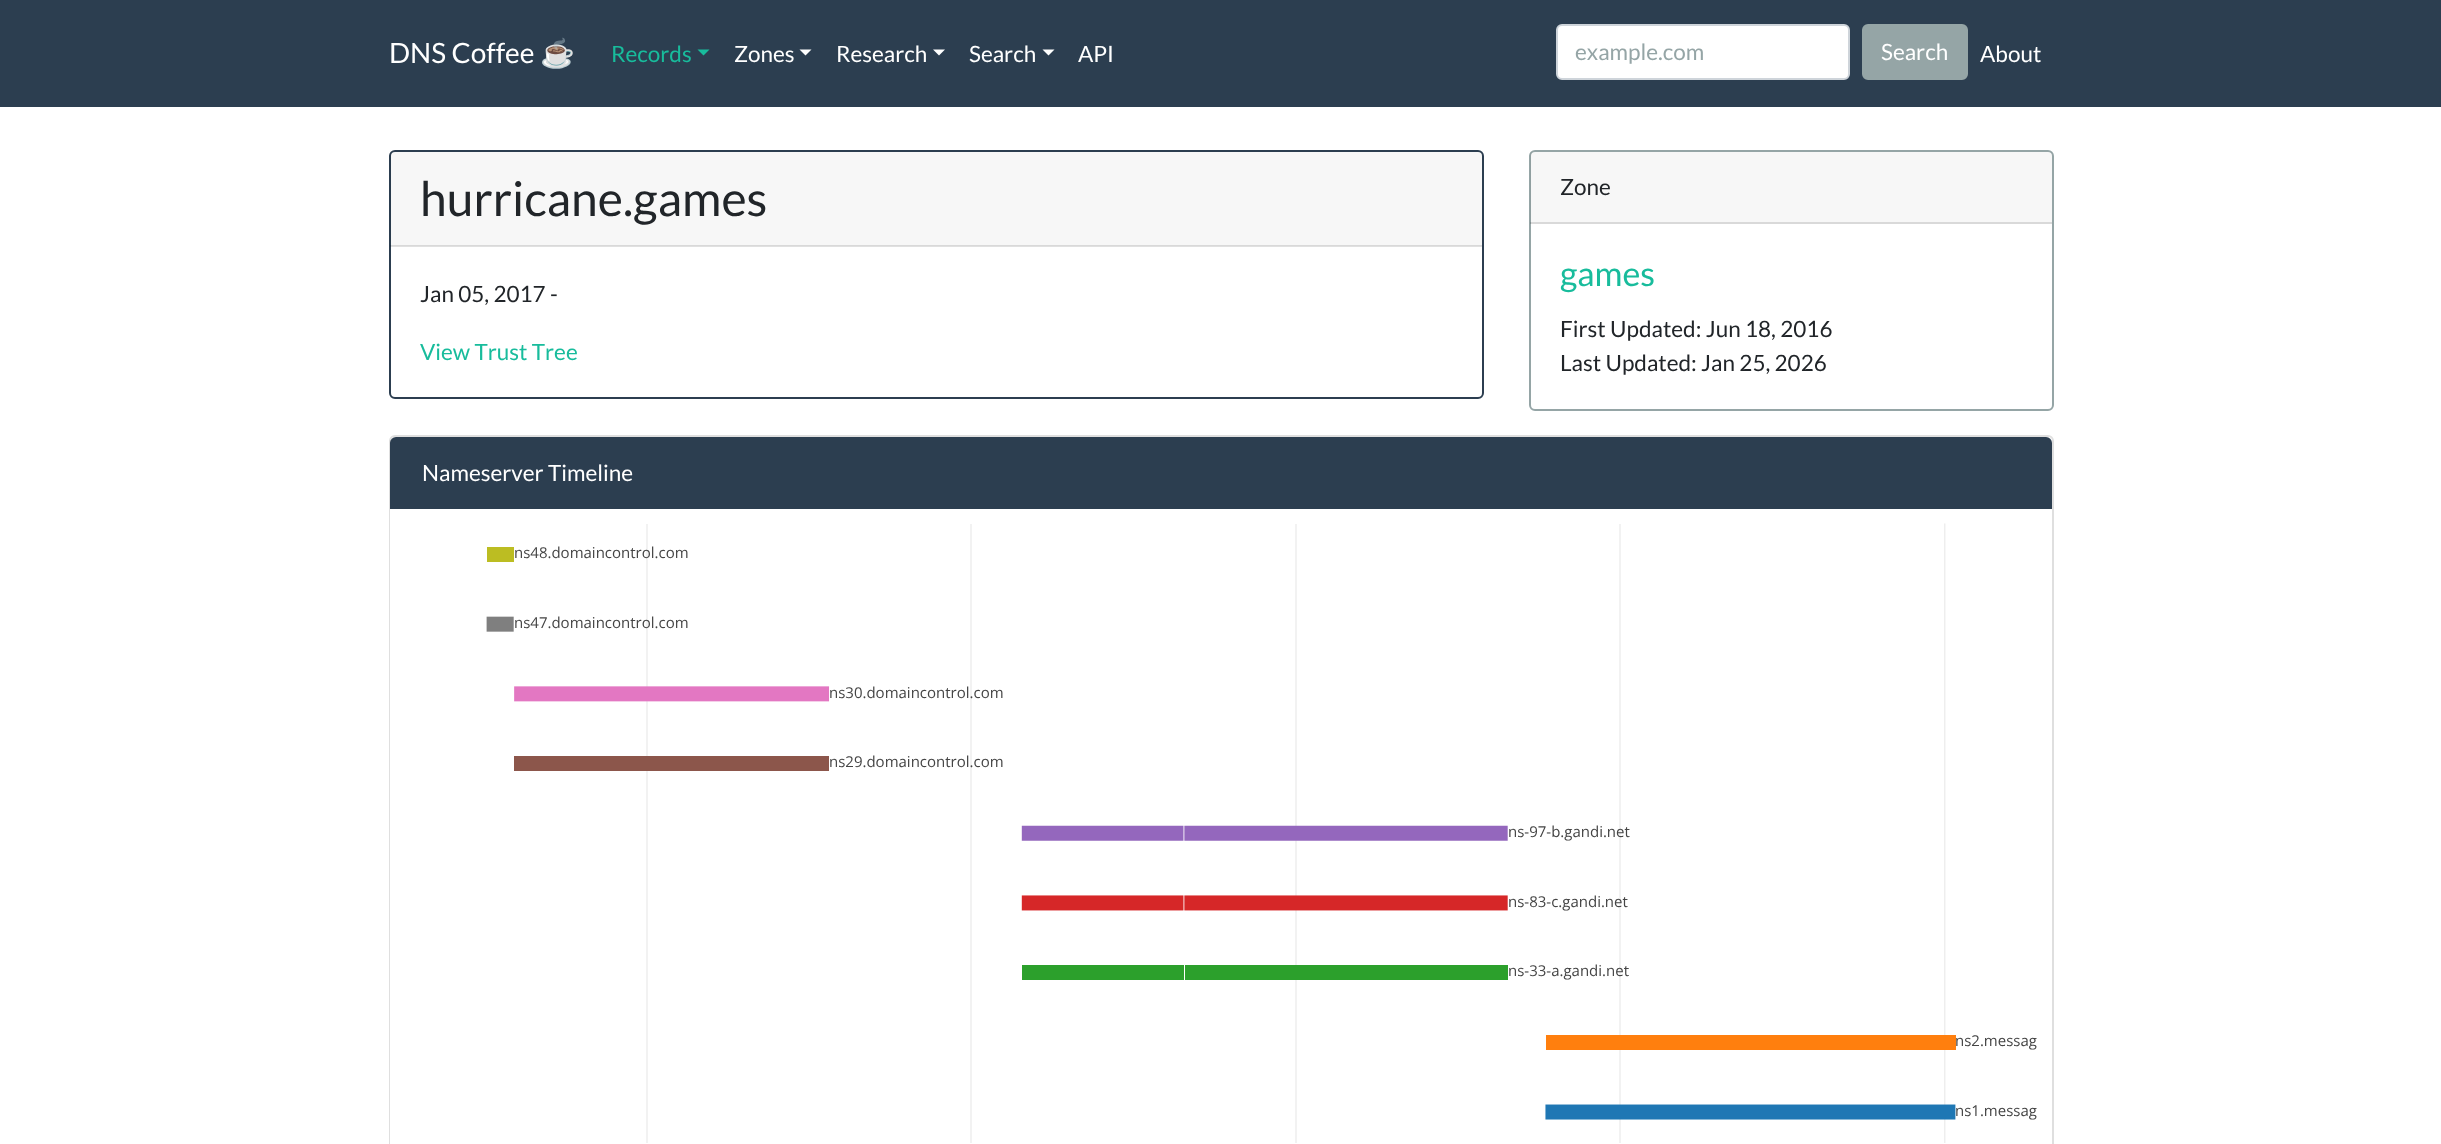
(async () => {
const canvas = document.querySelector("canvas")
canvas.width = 2441
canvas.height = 1144
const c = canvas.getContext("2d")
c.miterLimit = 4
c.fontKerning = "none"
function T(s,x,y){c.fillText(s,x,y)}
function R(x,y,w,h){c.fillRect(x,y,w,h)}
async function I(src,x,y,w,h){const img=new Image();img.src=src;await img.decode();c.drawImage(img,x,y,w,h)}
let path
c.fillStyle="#fff"
R(0,0,2441,1144)
c.fillStyle="#2c3e50"
R(0,0,2441,107)
c.font="28px Lato"
c.fillStyle="#fff"
T("DNS Coffee",389,63)
c.font="28px Noto Color Emoji"
T("☕",540,63)
c.font="22.5px Lato"
c.fillStyle="#18bc9c"
T("Records",611,62)
path = new Path2D("M697.5 49.5h12l-6 6z")
c.fill(path)
c.fillStyle="#fff"
T("Zones",734,62)
path = new Path2D("M799.5 49.5h12l-6 6z")
c.fill(path)
T("Research",836,62)
path = new Path2D("M933 49.5h12l-6 6z")
c.fill(path)
T("Search",969,62)
path = new Path2D("M1042.5 49.5h12l-6 6z")
c.fill(path)
T("API",1078,62)
c.beginPath()
c.roundRect(1557,25,292,54,5)
c.fill()
c.strokeStyle="#ced4da"
c.lineWidth=2
c.stroke()
c.fillStyle="#95a5a6"
T("example.com",1575,60)
c.beginPath()
c.roundRect(1863,25,104,54,5)
c.fill()
c.strokeStyle="#95a5a6"
c.stroke()
c.fillStyle="#fff"
T("Search",1881,60)
T("About",1980,62)
c.beginPath()
c.roundRect(390,151,1093,247,5)
c.strokeStyle="#2c3e50"
c.stroke()
c.fillStyle="#00000008"
R(390,152,1092,94)
c.fillStyle="#0000001f"
R(390,245,1092,2)
c.font="48px Lato"
c.fillStyle="#212529"
T("hurricane.games",420,216)
c.font="22.5px Lato"
T("Jan 05, 2017 -",420,302)
c.fillStyle="#18bc9c"
T("View Trust Tree",420,360)
c.beginPath()
c.roundRect(1530,151,523,259,5)
c.strokeStyle="#95a5a6"
c.stroke()
c.fillStyle="#00000008"
R(1530,152,522,72)
c.fillStyle="#0000001f"
R(1530,222,522,2)
c.fillStyle="#212529"
T("Zone",1560,195)
c.font="34px Lato"
c.fillStyle="#18bc9c"
T("games",1560,286)
c.font="22.5px Lato"
c.fillStyle="#212529"
T("First Updated: Jun 18, 2016",1560,337)
T("Last Updated: Jan 25, 2026",1560,371)
c.beginPath()
c.roundRect(390,436,1663,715,5)
c.strokeStyle="#dfdfdf"
c.stroke()
c.fillStyle="#2c3e50"
c.beginPath()
c.roundRect(391,438,1660,70,[5,5,0,0])
c.fill()
c.strokeStyle="#2c3e50"
c.stroke()
c.fillStyle="#fff"
T("Nameserver Timeline",422,481)
R(390,509,1,635)
await I("1.png",486,523,1470,620)
c.font="15px Open Sans"
c.fillStyle="#444"
T("ns48.domaincontrol.com",514,558)
T("ns47.domaincontrol.com",514,628)
T("ns30.domaincontrol.com",829,698)
T("ns29.domaincontrol.com",829,767)
T("ns-97-b.gandi.net",1508,837)
T("ns-83-c.gandi.net",1508,907)
T("ns-33-a.gandi.net",1508,976)
T("ns2.messag",1955,1046)
T("ns1.messag",1955,1116)
})()
